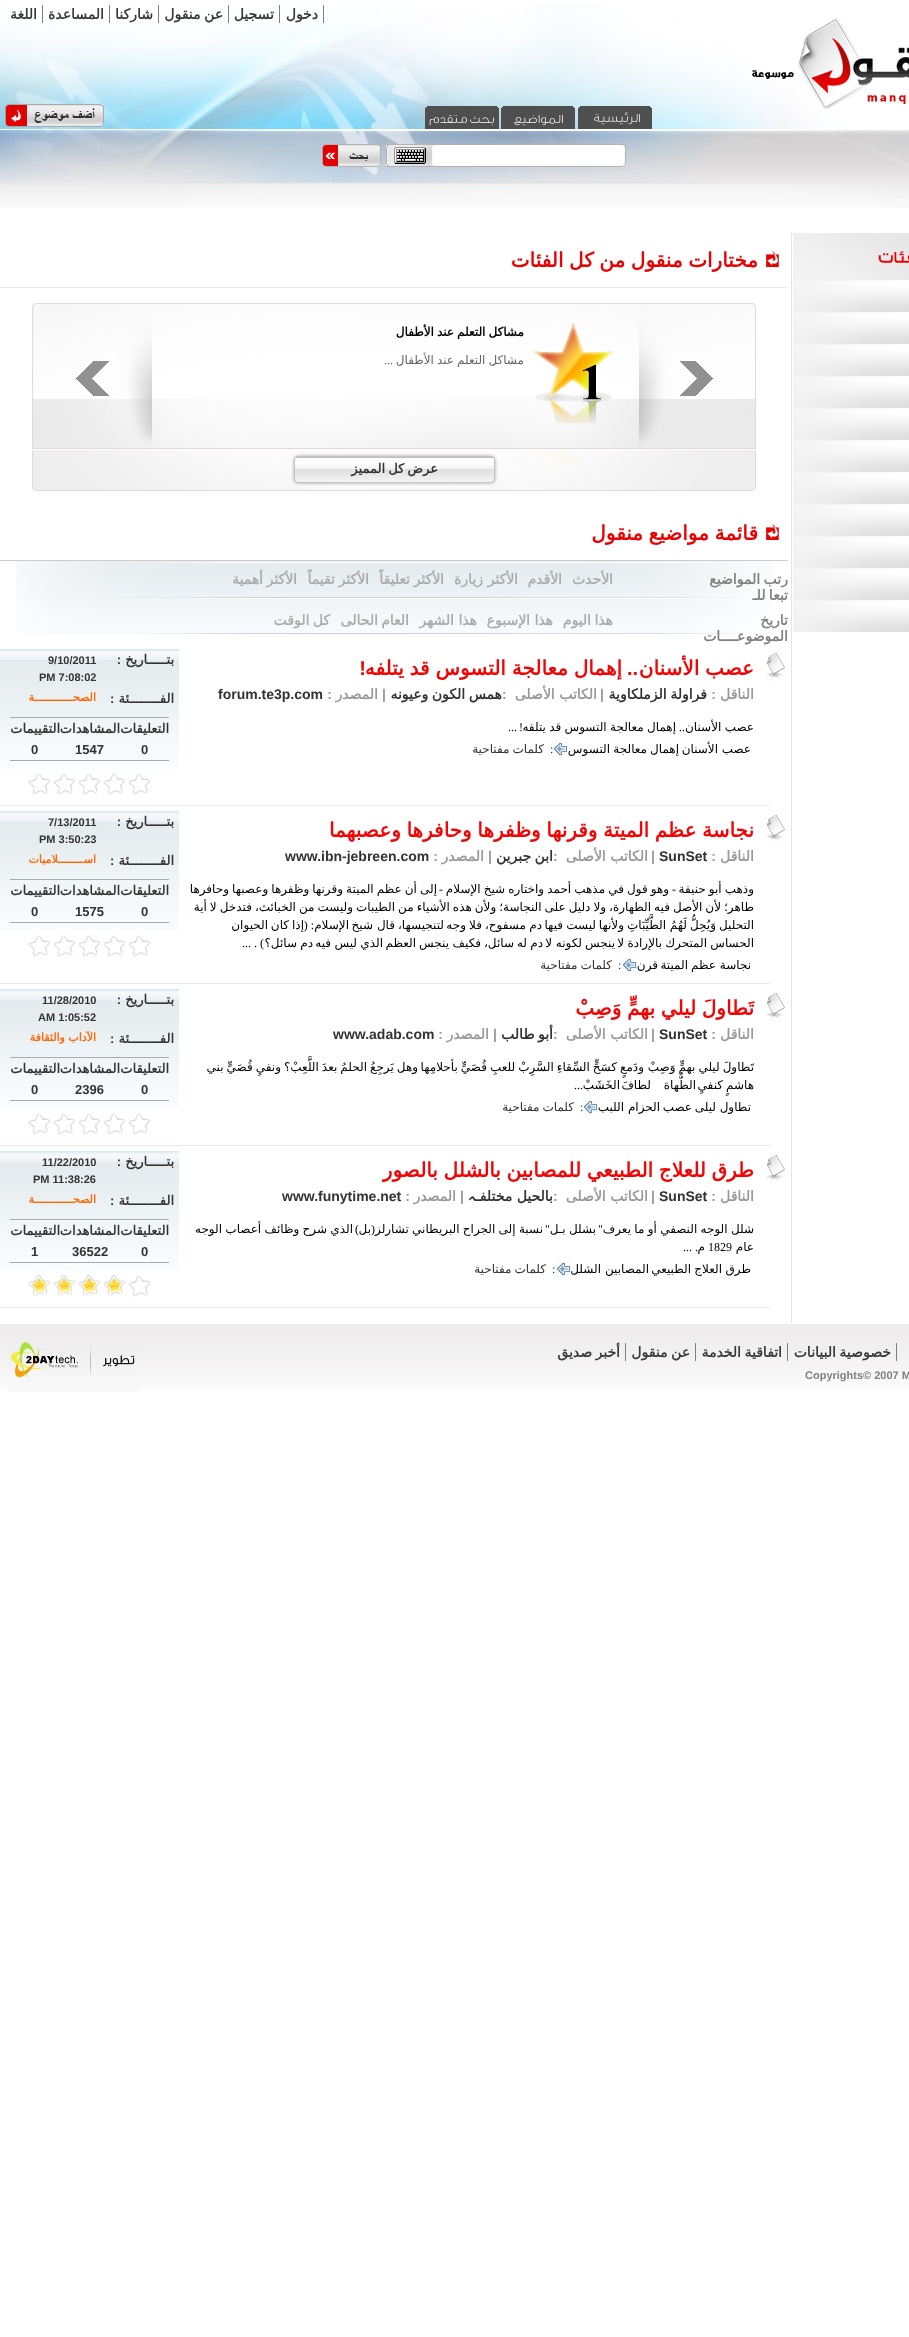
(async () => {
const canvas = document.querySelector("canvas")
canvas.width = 909
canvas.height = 2337
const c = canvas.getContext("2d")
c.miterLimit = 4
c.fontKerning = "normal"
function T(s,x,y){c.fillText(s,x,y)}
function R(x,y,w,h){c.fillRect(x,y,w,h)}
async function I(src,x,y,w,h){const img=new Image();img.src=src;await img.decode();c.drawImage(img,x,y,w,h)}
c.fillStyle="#fff"
R(0,0,909,2337)
await I("1.png",0,5,909,203)
c.fillStyle="#808080"
R(323,5,1,18)
c.direction="rtl"
c.font="bold 14px DejaVu Sans"
c.fillStyle="#3a3a3a"
T("دخول",318,19)
c.fillStyle="#808080"
R(279,5,1,18)
c.fillStyle="#3a3a3a"
T("تسجيل",274,19)
c.fillStyle="#808080"
R(228,5,1,18)
c.wordSpacing="-1px"
c.fillStyle="#3a3a3a"
T("عن منقول",223,19)
c.fillStyle="#808080"
R(158,5,1,18)
c.wordSpacing="0px"
c.fillStyle="#3a3a3a"
T("شاركنا",153,19)
c.fillStyle="#808080"
R(109,5,1,18)
c.fillStyle="#3a3a3a"
T("المساعدة",104,19)
c.fillStyle="#808080"
R(42,5,1,18)
c.fillStyle="#3a3a3a"
T("اللغة",37,19)
await I("2.png",578,106,74,23)
await I("3.png",501,106,74,23)
await I("4.png",425,106,74,23)
await I("5.png",5,104,99,23)
await I("6.png",752,18,157,92)
await I("7.png",386,144,240,23)
await I("8.png",386,145,49,21)
await I("9.png",322,144,59,23)
await I("10.png",793,233,116,47)
await I("11.png",793,280,116,32)
await I("11.png",793,312,116,32)
await I("11.png",793,344,116,32)
await I("11.png",793,376,116,32)
await I("11.png",793,408,116,32)
await I("11.png",793,440,116,32)
await I("11.png",793,472,116,32)
await I("11.png",793,504,116,32)
await I("11.png",793,536,116,32)
await I("11.png",793,568,116,32)
await I("11.png",793,600,116,32)
c.fillStyle="#e4e4e4"
R(791,233,1,1090)
await I("12.png",766,250,13,17)
c.fillStyle="#eaeaea"
R(0,287,788,1)
c.wordSpacing="-0.75px"
c.font="bold 20px DejaVu Sans"
c.fillStyle="#e80303"
T("مختارات منقول من كل الفئات",758,267)
await I("13.png",32,303,724,146)
await I("14.png",534,323,79,100)
c.wordSpacing="-0.8px"
c.font="bold 12px DejaVu Sans"
c.fillStyle="#000"
T("مشاكل التعلم عند الأطفال",524,336)
c.font="12px DejaVu Sans"
c.fillStyle="#666"
T("مشاكل التعلم عند الأطفال",524,364)
c.wordSpacing="0px"
c.direction="ltr"
c.font="12px Liberation Serif"
T("...",384,364)
await I("15.png",680,361,33,35)
await I("16.png",76,361,33,35)
await I("17.png",32,450,724,41)
c.wordSpacing="-1px"
c.direction="rtl"
c.font="bold 13px DejaVu Sans"
c.fillStyle="#333"
T("عرض كل المميز",438,473)
c.fillStyle="#ccc"
R(0,560,788,1)
await I("12.png",766,523,13,17)
c.wordSpacing="-0.75px"
c.font="bold 20px DejaVu Sans"
c.fillStyle="#e80303"
T("قائمة مواضيع منقول",758,540)
await I("18.png",16,561,757,73)
c.wordSpacing="-1px"
c.font="bold 14px DejaVu Sans"
c.fillStyle="#808080"
T("رتب المواضيع",788,584)
T("تبعا للـ",788,600)
c.wordSpacing="0px"
c.fillStyle="#acacac"
T("الأحدث",613,584)
T("الأقدم",562,584)
T("الأكثر",518,584)
T("زيارة",483,584)
T("الأكثر",444,584)
T("تعليقاً",410,584)
T("الأكثر",369,584)
T("تقيماً",335,584)
T("الأكثر",297,584)
T("أهمية",263,584)
c.fillStyle="#808080"
T("تاريخ",788,625)
T("الموضوعــــات",788,641)
c.fillStyle="#acacac"
T("هذا",613,625)
T("اليوم",591,625)
T("هذا",553,625)
T("الإسبوع",530,625)
T("هذا",477,625)
T("الشهر",454,625)
T("العام",409,625)
T("الحالى",378,625)
c.wordSpacing="-1px"
T("كل الوقت",330,625)
c.fillStyle="#eaeaea"
R(0,805,770,1)
await I("19.png",766,653,19,30)
c.wordSpacing="-0.5px"
c.font="bold 20px DejaVu Sans"
c.fillStyle="#f30404"
T("عصب الأسنان",754,675)
c.wordSpacing="0px"
c.font="bold 20px Liberation Sans"
T("..",638,675)
c.wordSpacing="-0.5px"
c.font="bold 20px DejaVu Sans"
T("إهمال معالجة التسوس قد يتلفه",622,675)
c.wordSpacing="0px"
c.font="bold 20px Liberation Sans"
T("!",366,675)
c.font="bold 14px DejaVu Sans"
c.fillStyle="#999"
T("الناقل",754,699)
c.font="bold 14px Liberation Sans"
T(":",716,699)
c.wordSpacing="-1px"
c.font="bold 14px DejaVu Sans"
c.fillStyle="#333"
T("فراولة الزملكاوية",707,699)
c.wordSpacing="0px"
c.font="bold 14px Liberation Sans"
c.fillStyle="#999"
T("|",604,699)
c.font="bold 14px DejaVu Sans"
T("الكاتب الأصلى",597,699)
c.direction="ltr"
c.font="bold 14px Liberation Sans"
T(":",502,699)
c.wordSpacing="-1px"
c.direction="rtl"
c.font="bold 14px DejaVu Sans"
c.fillStyle="#333"
T("همس الكون وعيونه",502,699)
c.wordSpacing="0px"
c.font="bold 14px Liberation Sans"
c.fillStyle="#999"
T("|",386,699)
c.font="bold 14px DejaVu Sans"
T("المصدر",378,699)
c.font="bold 14px Liberation Sans"
T(":",332,699)
c.direction="ltr"
c.fillStyle="#333"
T("forum.te3p.com",218,699)
c.wordSpacing="-0.5px"
c.direction="rtl"
c.font="12px DejaVu Sans"
c.fillStyle="#000"
T("عصب الأسنان",754,731)
c.wordSpacing="0px"
c.font="12px Liberation Serif"
T("..",685,731)
c.wordSpacing="-0.5px"
c.font="12px DejaVu Sans"
T("إهمال معالجة التسوس قد يتلفه",676,731)
c.wordSpacing="0px"
c.font="12px Liberation Serif"
T("!",523,731)
c.direction="ltr"
T("...",508,731)
c.direction="rtl"
c.font="12px DejaVu Sans"
T("عصب",751,753)
T("الأسنان",718,753)
T("إهمال",679,753)
T("معالجة",647,753)
T("التسوس",610,753)
await I("20.png",553,742,15,15)
c.direction="ltr"
c.font="12px Liberation Serif"
c.fillStyle="#333"
T(":",550,753)
c.wordSpacing="-0.8px"
c.direction="rtl"
c.font="12px DejaVu Sans"
T("كلمات مفتاحية",544,753)
await I("21.png",0,649,179,120)
c.wordSpacing="0px"
c.font="bold 13px DejaVu Sans"
T("بتـــــاريخ",174,664)
c.font="bold 13px Liberation Sans"
T(":",121,664)
c.direction="ltr"
c.font="bold 11px Liberation Sans"
T("9/10/2011",48,664)
T("PM 7:08:02",39,681)
c.direction="rtl"
c.font="bold 13px DejaVu Sans"
T("الفــــــــئة",174,703)
c.direction="ltr"
c.font="bold 13px Liberation Sans"
T(":",110,703)
c.direction="rtl"
c.font="bold 11px DejaVu Sans"
c.fillStyle="#f60"
T("الصحــــــــــــة",96,701)
c.fillStyle="#aaa"
R(10,717,159,1)
R(10,760,159,1)
c.font="bold 13px DejaVu Sans"
c.fillStyle="#333"
T("التعليقات",169,733)
T("المشاهدات",120,733)
T("التقييمات",60,733)
c.direction="ltr"
c.font="bold 13px Liberation Sans"
T("0",141,754)
T("1547",75,754)
T("0",31,754)
await I("22.png",28,773,123,22)
c.fillStyle="#eaeaea"
R(0,983,770,1)
await I("19.png",766,815,19,30)
c.wordSpacing="-0.75px"
c.direction="rtl"
c.font="bold 20px DejaVu Sans"
c.fillStyle="#f30404"
T("نجاسة عظم الميتة وقرنها وظفرها وحافرها وعصبهما",754,837)
c.wordSpacing="0px"
c.font="bold 14px DejaVu Sans"
c.fillStyle="#999"
T("الناقل",754,861)
c.font="bold 14px Liberation Sans"
T(":",716,861)
c.direction="ltr"
c.fillStyle="#333"
T("SunSet",659,861)
c.direction="rtl"
c.fillStyle="#999"
T("|",655,861)
c.font="bold 14px DejaVu Sans"
T("الكاتب الأصلى",648,861)
c.direction="ltr"
c.font="bold 14px Liberation Sans"
T(":",553,861)
c.wordSpacing="-1px"
c.direction="rtl"
c.font="bold 14px DejaVu Sans"
c.fillStyle="#333"
T("ابن جبرين",553,861)
c.wordSpacing="0px"
c.font="bold 14px Liberation Sans"
c.fillStyle="#999"
T("|",492,861)
c.font="bold 14px DejaVu Sans"
T("المصدر",484,861)
c.font="bold 14px Liberation Sans"
T(":",438,861)
c.direction="ltr"
c.fillStyle="#333"
T("www.ibn-jebreen.com",285,861)
c.wordSpacing="-0.75px"
c.direction="rtl"
c.font="12px DejaVu Sans"
c.fillStyle="#000"
T("وذهب أبو حنيفة",754,893)
T("وهو قول في مذهب أحمد واختاره شيخ الإسلام",669,893)
T("إلى أن عظم الميتة وقرنها وظفرها وعصبها وحافرها",437,893)
c.wordSpacing="0px"
c.font="12px Liberation Serif"
T("-",676,893)
T("-",443,893)
c.wordSpacing="-0.8px"
c.font="12px DejaVu Sans"
T("طاهر؛ لأن الأصل فيه الطهارة، ولا دليل على النجاسة؛ ولأن هذه الأشياء من الطيبات وليست من الخبائث، فتدخل لا أية",754,911)
c.wordSpacing="0px"
T("التحليل",754,929)
T("وَيُحِلُّ",716,929)
T("لَهُمُ",687,929)
T("الطَّيِّبَاتِ",666,929)
T("ولأنها",624,929)
T("ليست",596,929)
T("فيها",563,929)
T("دم",542,929)
T("مسفوح،",526,929)
T("فلا",482,929)
T("وجه",466,929)
T("لتنجيسها،",444,929)
T("قال",395,929)
T("شيخ",373,929)
T("الإسلام",349,929)
c.font="12px Liberation Serif"
T(": (",314,929)
c.font="12px DejaVu Sans"
T("إذا",304,929)
T("كان",289,929)
T("الحيوان",268,929)
T("الحساس",754,947)
T("المتحرك",707,947)
T("بالإرادة",662,947)
T("لا",624,947)
T("ينجس",615,947)
T("لكونه",582,947)
T("لا",552,947)
T("دم",543,947)
T("له",527,947)
T("سائل،",514,947)
T("فكيف",481,947)
T("ينجس",449,947)
T("العظم",416,947)
T("الذي",383,947)
T("ليس",357,947)
T("فيه",331,947)
T("دم",313,947)
T("سائل؟",297,947)
c.font="12px Liberation Serif"
T(") .",264,947)
c.direction="ltr"
T("...",242,947)
c.direction="rtl"
c.font="12px DejaVu Sans"
T("نجاسة",751,969)
T("عظم",716,969)
T("الميتة",688,969)
T("قرن",658,969)
await I("20.png",622,958,15,15)
c.direction="ltr"
c.font="12px Liberation Serif"
c.fillStyle="#333"
T(":",618,969)
c.wordSpacing="-0.8px"
c.direction="rtl"
c.font="12px DejaVu Sans"
T("كلمات مفتاحية",612,969)
await I("21.png",0,811,179,120)
c.wordSpacing="0px"
c.font="bold 13px DejaVu Sans"
T("بتـــــاريخ",174,826)
c.font="bold 13px Liberation Sans"
T(":",121,826)
c.direction="ltr"
c.font="bold 11px Liberation Sans"
T("7/13/2011",48,826)
T("PM 3:50:23",39,843)
c.direction="rtl"
c.font="bold 13px DejaVu Sans"
T("الفــــــــئة",174,865)
c.direction="ltr"
c.font="bold 13px Liberation Sans"
T(":",110,865)
c.direction="rtl"
c.font="bold 11px DejaVu Sans"
c.fillStyle="#f60"
T("اســــــــلاميات",96,863)
c.fillStyle="#aaa"
R(10,879,159,1)
R(10,922,159,1)
c.font="bold 13px DejaVu Sans"
c.fillStyle="#333"
T("التعليقات",169,895)
T("المشاهدات",120,895)
T("التقييمات",60,895)
c.direction="ltr"
c.font="bold 13px Liberation Sans"
T("0",141,916)
T("1575",75,916)
T("0",31,916)
await I("22.png",28,935,123,22)
c.fillStyle="#eaeaea"
R(0,1145,770,1)
await I("19.png",766,993,19,30)
c.wordSpacing="-0.75px"
c.direction="rtl"
c.font="bold 20px DejaVu Sans"
c.fillStyle="#f30404"
T("تَطاولَ ليلي بهمٍّ وَصِبْ",754,1015)
c.wordSpacing="0px"
c.font="bold 14px DejaVu Sans"
c.fillStyle="#999"
T("الناقل",754,1039)
c.font="bold 14px Liberation Sans"
T(":",716,1039)
c.direction="ltr"
c.fillStyle="#333"
T("SunSet",659,1039)
c.direction="rtl"
c.fillStyle="#999"
T("|",655,1039)
c.font="bold 14px DejaVu Sans"
T("الكاتب الأصلى",648,1039)
c.direction="ltr"
c.font="bold 14px Liberation Sans"
T(":",553,1039)
c.wordSpacing="-1px"
c.direction="rtl"
c.font="bold 14px DejaVu Sans"
c.fillStyle="#333"
T("أبو طالب",553,1039)
c.wordSpacing="0px"
c.font="bold 14px Liberation Sans"
c.fillStyle="#999"
T("|",497,1039)
c.font="bold 14px DejaVu Sans"
T("المصدر",489,1039)
c.font="bold 14px Liberation Sans"
T(":",443,1039)
c.direction="ltr"
c.fillStyle="#333"
T("www.adab.com",333,1039)
c.wordSpacing="-0.8px"
c.direction="rtl"
c.font="12px DejaVu Sans"
c.fillStyle="#000"
T("تَطاولَ ليلي بهمٍّ وَصِبْ",754,1071)
T("ودَمعٍ كسَحٍّ السِّقاءِ السَّرِبْ للعبِ قُصَيٍّ بأحلامِها",644,1071)
T("وهل يَرجِعُ الحلمُ بعدَ اللَّعِبْ؟ ونفيِ قُصَيٍّ بني",418,1071)
c.wordSpacing="0px"
T("هاشمٍ",754,1089)
T("كنفيِ",723,1089)
T("الطُّهاة",696,1089)
T("لطافَ",651,1089)
T("الخَشَبْ",620,1089)
c.direction="ltr"
c.font="12px Liberation Serif"
T("...",574,1089)
c.direction="rtl"
c.font="12px DejaVu Sans"
T("تطاول",751,1111)
T("ليلى",716,1111)
T("عصب",692,1111)
T("الحزام",660,1111)
T("اللبب",624,1111)
await I("20.png",583,1100,15,15)
c.direction="ltr"
c.font="12px Liberation Serif"
c.fillStyle="#333"
T(":",580,1111)
c.wordSpacing="-0.8px"
c.direction="rtl"
c.font="12px DejaVu Sans"
T("كلمات مفتاحية",574,1111)
await I("21.png",0,989,179,120)
c.wordSpacing="0px"
c.font="bold 13px DejaVu Sans"
T("بتـــــاريخ",174,1004)
c.font="bold 13px Liberation Sans"
T(":",121,1004)
c.direction="ltr"
c.font="bold 11px Liberation Sans"
T("11/28/2010",42,1004)
T("AM 1:05:52",38,1021)
c.direction="rtl"
c.font="bold 13px DejaVu Sans"
T("الفــــــــئة",174,1043)
c.direction="ltr"
c.font="bold 13px Liberation Sans"
T(":",110,1043)
c.direction="rtl"
c.font="bold 11px DejaVu Sans"
c.fillStyle="#f60"
T("الآداب والثقافة",96,1041)
c.fillStyle="#aaa"
R(10,1057,159,1)
R(10,1100,159,1)
c.font="bold 13px DejaVu Sans"
c.fillStyle="#333"
T("التعليقات",169,1073)
T("المشاهدات",120,1073)
T("التقييمات",60,1073)
c.direction="ltr"
c.font="bold 13px Liberation Sans"
T("0",141,1094)
T("2396",75,1094)
T("0",31,1094)
await I("22.png",28,1113,123,22)
c.fillStyle="#eaeaea"
R(0,1307,770,1)
await I("19.png",766,1155,19,30)
c.wordSpacing="-0.75px"
c.direction="rtl"
c.font="bold 20px DejaVu Sans"
c.fillStyle="#f30404"
T("طرق للعلاج الطبيعي للمصابين بالشلل بالصور",754,1177)
c.wordSpacing="0px"
c.font="bold 14px DejaVu Sans"
c.fillStyle="#999"
T("الناقل",754,1201)
c.font="bold 14px Liberation Sans"
T(":",716,1201)
c.direction="ltr"
c.fillStyle="#333"
T("SunSet",659,1201)
c.direction="rtl"
c.fillStyle="#999"
T("|",655,1201)
c.font="bold 14px DejaVu Sans"
T("الكاتب الأصلى",648,1201)
c.direction="ltr"
c.font="bold 14px Liberation Sans"
T(":",553,1201)
c.direction="rtl"
c.font="bold 14px Cascadia Code"
c.fillStyle="#333"
T("‍ہ",476,1201)
c.font="bold 14px DejaVu Sans"
T("بالحيل مختلفـ‍",553,1201)
c.font="bold 14px Liberation Sans"
c.fillStyle="#999"
T("|",464,1201)
c.font="bold 14px DejaVu Sans"
T("المصدر",456,1201)
c.font="bold 14px Liberation Sans"
T(":",410,1201)
c.direction="ltr"
c.fillStyle="#333"
T("www.funytime.net",282,1201)
c.wordSpacing="-0.5px"
c.direction="rtl"
c.font="12px DejaVu Sans"
c.fillStyle="#000"
T("شلل الوجه النصفي أو ما يعرف",754,1233)
c.wordSpacing="0px"
c.font="12px Liberation Serif"
T("\"",603,1233)
c.wordSpacing="-0.5px"
c.font="12px DejaVu Sans"
T("بشلل بـل",596,1233)
c.wordSpacing="0px"
c.font="12px Liberation Serif"
T("\"",550,1233)
T("(",375,1233)
c.wordSpacing="-0.5px"
c.font="12px DejaVu Sans"
T("نسبة إلى الجراح البريطاني تشارلز",543,1233)
c.wordSpacing="0px"
T("بل",371,1233)
c.font="12px Liberation Serif"
T(")",359,1233)
c.wordSpacing="-0.5px"
c.font="12px DejaVu Sans"
T("الذي شرح وظائف أعصاب الوجه",353,1233)
c.wordSpacing="0px"
T("عام",754,1251)
c.direction="ltr"
c.font="12px Liberation Serif"
T("1829",708,1251)
c.direction="rtl"
c.font="12px DejaVu Sans"
T("م",705,1251)
c.font="12px Liberation Serif"
T(".",698,1251)
c.direction="ltr"
T("...",683,1251)
c.direction="rtl"
c.font="12px DejaVu Sans"
T("طرق",751,1273)
T("العلاج",722,1273)
T("الطبيعي",691,1273)
T("المصابين",649,1273)
T("الشلل",601,1273)
await I("20.png",556,1262,15,15)
c.direction="ltr"
c.font="12px Liberation Serif"
c.fillStyle="#333"
T(":",552,1273)
c.wordSpacing="-0.8px"
c.direction="rtl"
c.font="12px DejaVu Sans"
T("كلمات مفتاحية",546,1273)
await I("21.png",0,1151,179,120)
c.wordSpacing="0px"
c.font="bold 13px DejaVu Sans"
T("بتـــــاريخ",174,1166)
c.font="bold 13px Liberation Sans"
T(":",121,1166)
c.direction="ltr"
c.font="bold 11px Liberation Sans"
T("11/22/2010",42,1166)
T("PM 11:38:26",33,1183)
c.direction="rtl"
c.font="bold 13px DejaVu Sans"
T("الفــــــــئة",174,1205)
c.direction="ltr"
c.font="bold 13px Liberation Sans"
T(":",110,1205)
c.direction="rtl"
c.font="bold 11px DejaVu Sans"
c.fillStyle="#f60"
T("الصحــــــــــــة",96,1203)
c.fillStyle="#aaa"
R(10,1219,159,1)
R(10,1262,159,1)
c.font="bold 13px DejaVu Sans"
c.fillStyle="#333"
T("التعليقات",169,1235)
T("المشاهدات",120,1235)
T("التقييمات",60,1235)
c.direction="ltr"
c.font="bold 13px Liberation Sans"
T("0",141,1256)
T("36522",72,1256)
T("1",31,1256)
await I("23.png",126,1275,25,22)
await I("24.png",28,1274,98,23)
await I("25.png",0,1324,909,65)
c.fillStyle="#808080"
R(896,1343,1,18)
c.wordSpacing="-1px"
c.direction="rtl"
c.font="bold 14px DejaVu Sans"
c.fillStyle="#3a3a3a"
T("خصوصية البيانات",891,1357)
c.fillStyle="#808080"
R(787,1343,1,18)
c.fillStyle="#3a3a3a"
T("اتفاقية الخدمة",782,1357)
c.fillStyle="#808080"
R(695,1343,1,18)
c.fillStyle="#3a3a3a"
T("عن منقول",690,1357)
c.fillStyle="#808080"
R(625,1343,1,18)
c.fillStyle="#3a3a3a"
T("أخبر صديق",620,1357)
c.wordSpacing="0px"
c.direction="ltr"
c.font="bold 11px Liberation Sans"
c.fillStyle="#808080"
T("Copyrights© 2007 M",805,1379)
await I("26.png",6,1338,135,54)
})()
